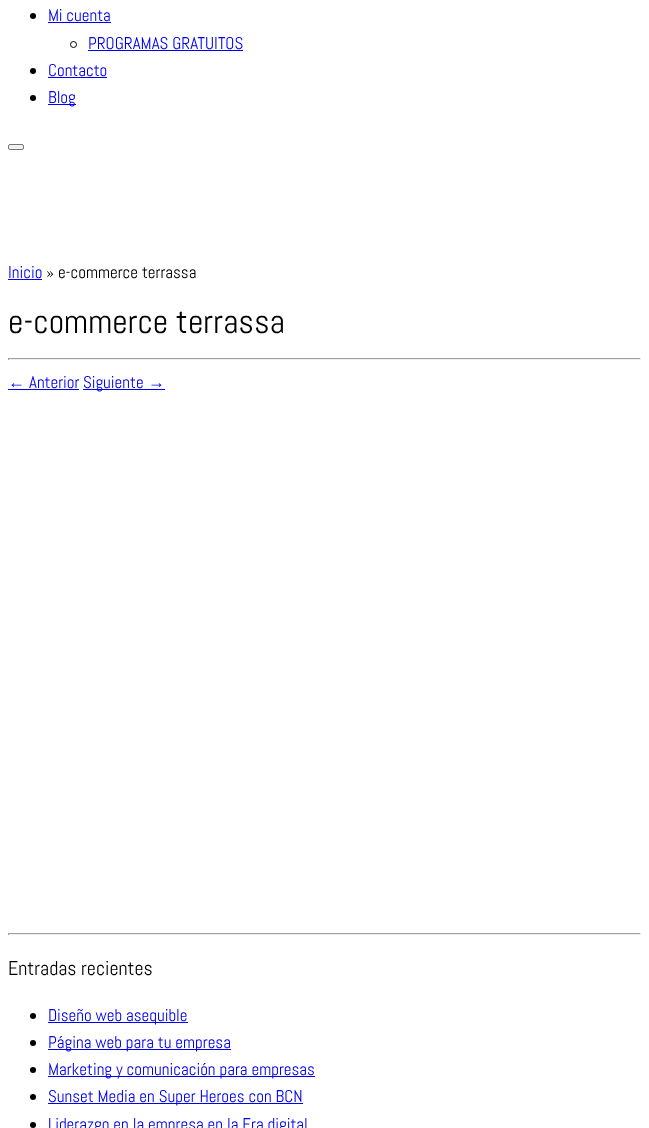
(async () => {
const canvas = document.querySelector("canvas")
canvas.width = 649
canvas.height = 1128
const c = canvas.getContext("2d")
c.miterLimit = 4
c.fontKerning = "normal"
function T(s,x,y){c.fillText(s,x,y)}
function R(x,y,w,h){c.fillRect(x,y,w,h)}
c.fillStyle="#fff"
R(0,0,649,1128)
c.fillStyle="#000"
c.beginPath()
c.arc(33,16,3,0,7)
c.fill()
c.font="17px Abel"
c.fillStyle="#00e"
T("Mi cuenta",48,21)
R(48,22,63,1)
c.beginPath()
c.arc(73.5,44.5,3,0,7)
c.strokeStyle="#000"
c.stroke()
T("PROGRAMAS GRATUITOS",88,49)
R(88,50,155,1)
c.fillStyle="#000"
c.beginPath()
c.arc(33,71,3,0,7)
c.fill()
c.fillStyle="#00e"
T("Contacto",48,76)
R(48,77,59,1)
c.fillStyle="#000"
c.beginPath()
c.arc(33,98,3,0,7)
c.fill()
c.fillStyle="#00e"
R(48,104,28,1)
T("Blog",48,103)
c.fillStyle="#efefef"
c.beginPath()
c.roundRect(8.5,144.5,15,5,1.5)
c.fill()
c.strokeStyle="#767676"
c.stroke()
c.fillStyle="#00e"
T("Inicio",8,278)
R(8,279,34,1)
c.fillStyle="#000"
T("» e-commerce terrassa",46,278)
c.font="34px Abel"
T("e-commerce terrassa",8,333)
c.fillStyle="#9f9f9f"
R(8,358,633,1)
c.fillStyle="#eee"
R(640,358,1,2)
R(8,359,633,1)
c.fillStyle="#9f9f9f"
R(8,358,1,2)
c.font="17px Liberation Serif"
c.fillStyle="#00e"
T("←",8,388)
R(8,389,71,1)
c.font="17px Abel"
T("Anterior",29,388)
R(83,389,82,1)
T("Siguiente",83,388)
c.font="17px Liberation Serif"
T("→",148,388)
c.fillStyle="#9f9f9f"
R(8,933,633,1)
c.fillStyle="#eee"
R(640,933,1,2)
R(8,934,633,1)
c.fillStyle="#9f9f9f"
R(8,933,1,2)
c.font="20px Abel"
c.fillStyle="#000"
T("Entradas recientes",8,975)
c.beginPath()
c.arc(33,1016,3,0,7)
c.fill()
c.fillStyle="#00e"
R(48,1022,140,1)
c.font="17px Abel"
T("Diseño web asequible",48,1021)
c.fillStyle="#000"
c.beginPath()
c.arc(33,1043,3,0,7)
c.fill()
c.fillStyle="#00e"
R(48,1049,183,1)
T("Página web para tu empresa",48,1048)
c.fillStyle="#000"
c.beginPath()
c.arc(33,1070,3,0,7)
c.fill()
c.fillStyle="#00e"
R(48,1076,267,1)
T("Marketing y comunicación para empresas",48,1075)
c.fillStyle="#000"
c.beginPath()
c.arc(33,1097,3,0,7)
c.fill()
c.fillStyle="#00e"
R(48,1103,255,1)
T("Sunset Media en Super Heroes con BCN",48,1102)
c.fillStyle="#000"
c.beginPath()
c.arc(33,1125,3,0,7)
c.fill()
c.fillStyle="#00e"
T("Liderazgo en la empresa en la Era digital",48,1130)
})()
